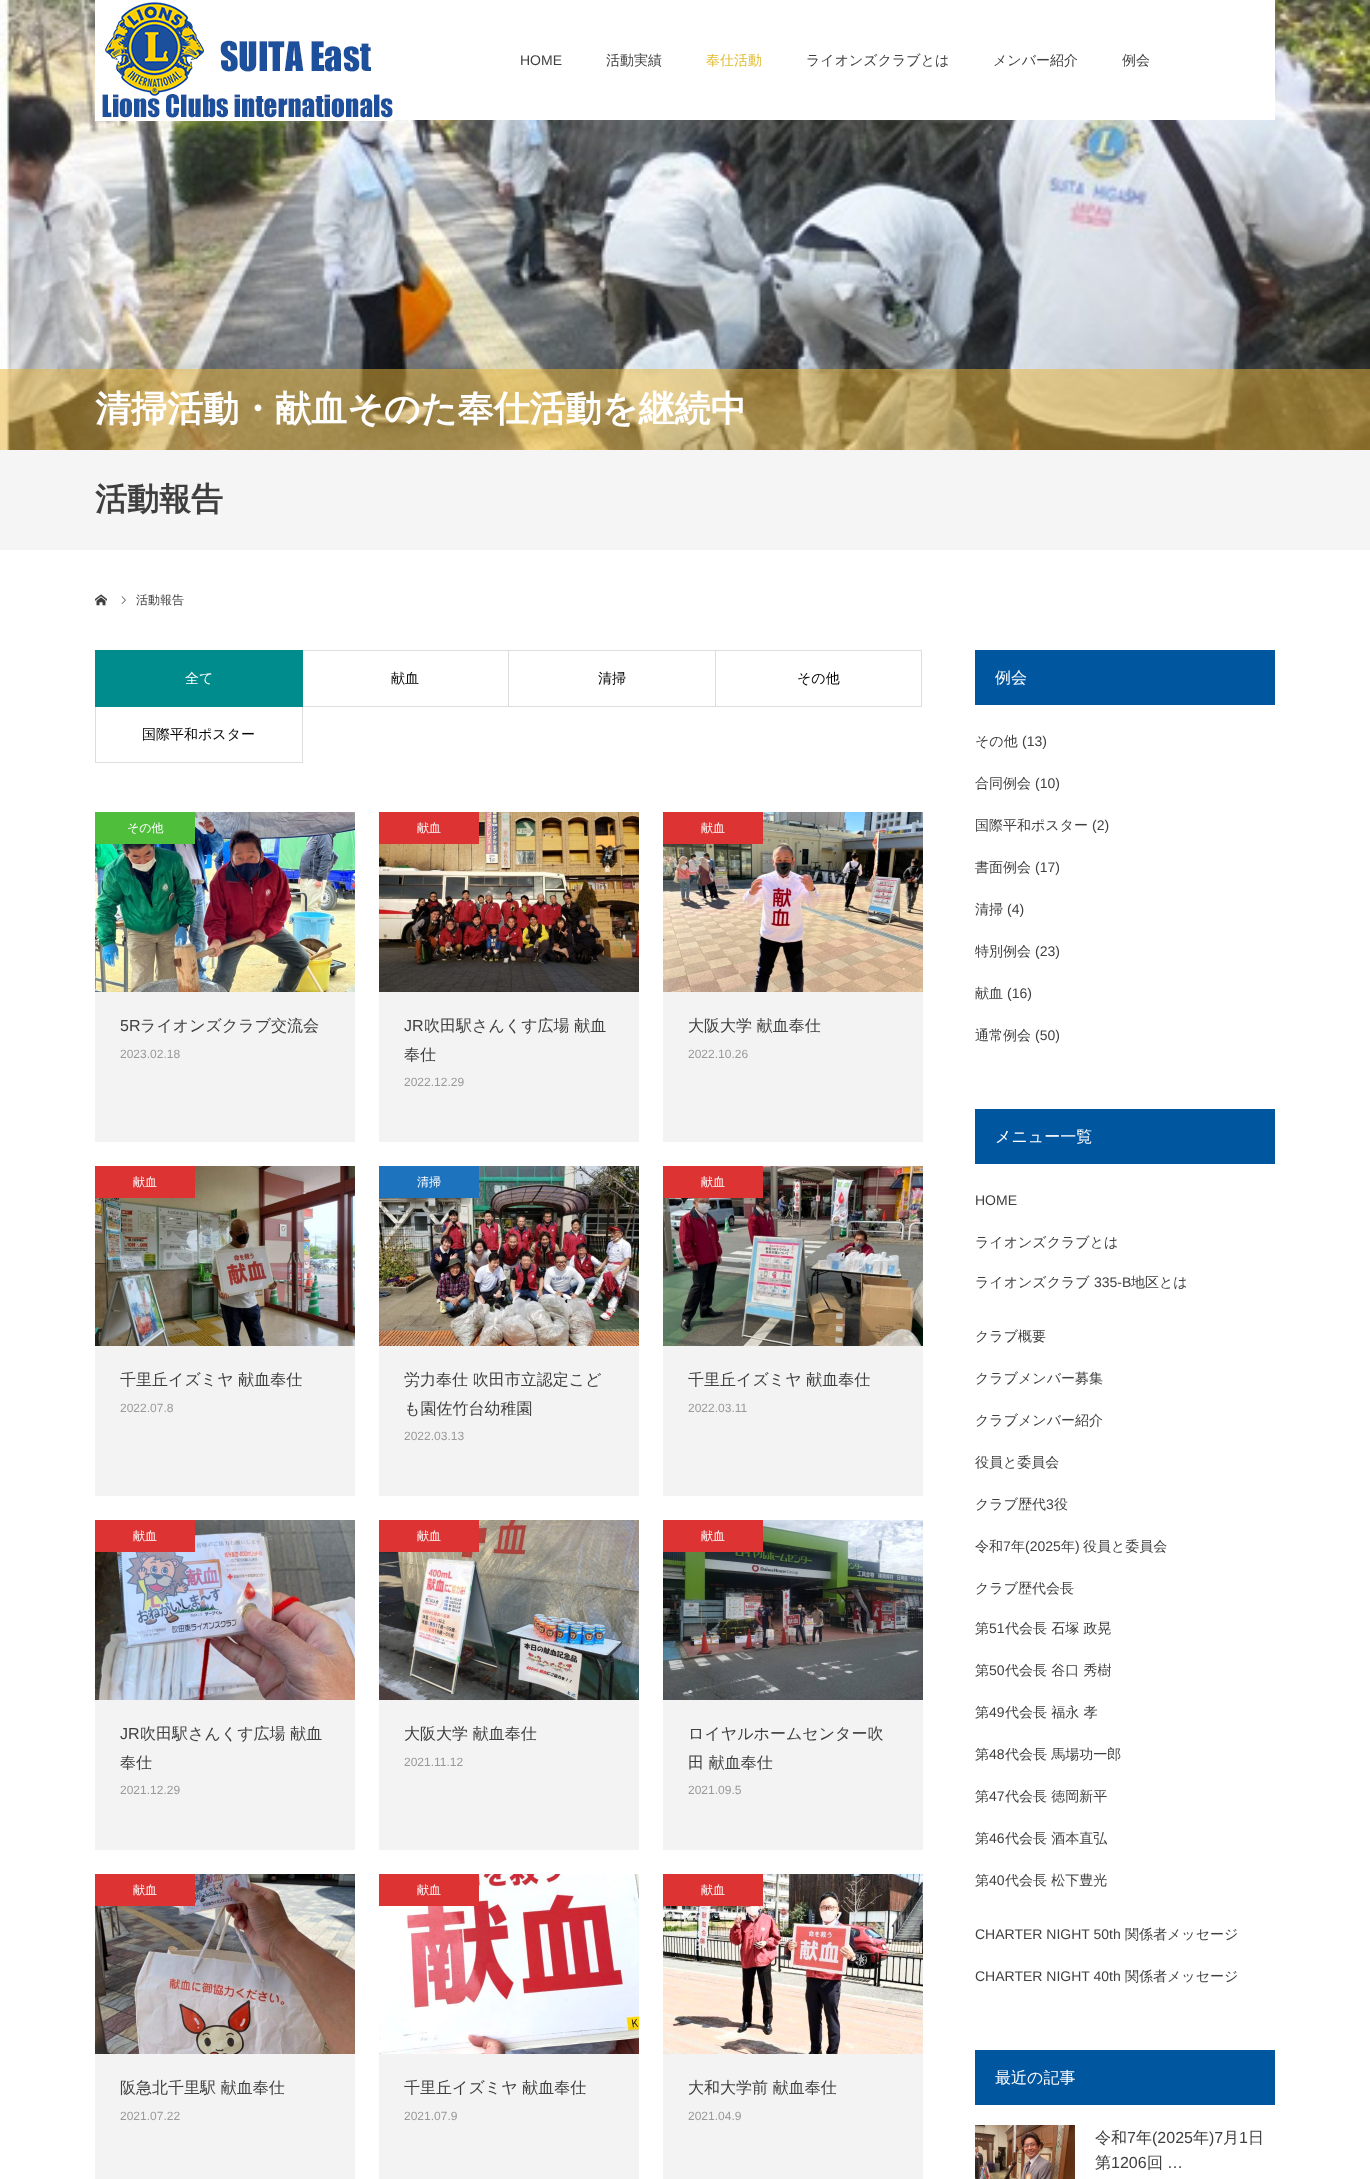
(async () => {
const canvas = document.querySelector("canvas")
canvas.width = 1370
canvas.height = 2179
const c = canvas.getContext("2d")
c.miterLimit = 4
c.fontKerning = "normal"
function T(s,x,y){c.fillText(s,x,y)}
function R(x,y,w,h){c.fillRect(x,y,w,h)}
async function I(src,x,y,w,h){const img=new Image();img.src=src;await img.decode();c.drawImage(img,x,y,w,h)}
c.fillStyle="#fff"
R(0,0,1370,2179)
await I("2.png",0,0,1370,450)
R(95,0,1180,120)
await I("1.png",95,2,300,119)
c.font="14px Liberation Sans"
c.fillStyle="#3f3f3f"
T("HOME",520,65)
c.font="500 14px WenQuanYi Zen Hei"
T("活動実績",606,65)
c.fillStyle="#e0bd33"
T("奉仕活動",706,65)
c.fillStyle="#3f3f3f"
T("ライオンズクラブとは",806,65)
T("メンバー紹介",993,65)
T("例会",1122,65)
c.fillStyle="#eab43580"
R(0,369,1370,81)
c.font="bold 36px WenQuanYi Zen Hei"
c.fillStyle="#fff"
T("清掃活動・献血そのた奉仕活動を継続中",95,421)
c.fillStyle="#f5f5f5"
R(0,450,1370,100)
c.font="bold 32px WenQuanYi Zen Hei"
c.fillStyle="#3f3f3f"
T("活動報告",95,510)
await I("3.png",95,594,12,12)
await I("4.png",121,596,5,8)
c.font="500 12px WenQuanYi Zen Hei"
T("活動報告",136,604)
c.strokeStyle="#ddd"
c.strokeRect(302.5,650.5,206,56)
c.strokeRect(95.5,706.5,207,56)
c.fillStyle="#008c8c"
R(95,650,208,57)
c.font="500 14px WenQuanYi Zen Hei"
c.fillStyle="#fff"
T("全て",185,683)
c.fillStyle="#000"
T("献血",391,683)
c.strokeRect(508.5,650.5,207,56)
T("清掃",598,683)
c.strokeRect(715.5,650.5,206,56)
T("その他",797,683)
T("国際平和ポスター",142,739)
c.fillStyle="#f3f3f3"
R(95,992,260,150)
await I("5.png",95,812,260,180)
c.fillStyle="#4fbf3b"
R(95,812,100,32)
c.font="500 12px WenQuanYi Zen Hei"
c.fillStyle="#fff"
T("その他",127,832)
c.font="16px Liberation Sans"
c.fillStyle="#3f3f3f"
T("5R",120,1031)
c.font="500 16px WenQuanYi Zen Hei"
T("ライオンズクラブ交流会",140,1031)
c.font="12px Liberation Sans"
c.fillStyle="#999"
T("2023.02.18",120,1058)
c.fillStyle="#f3f3f3"
R(379,992,260,150)
await I("6.png",379,812,260,180)
c.fillStyle="#d33"
R(379,812,100,32)
c.font="500 12px WenQuanYi Zen Hei"
c.fillStyle="#fff"
T("献血",417,832)
c.font="16px Liberation Sans"
c.fillStyle="#3f3f3f"
T("JR",404,1031)
c.font="500 16px WenQuanYi Zen Hei"
T("吹田駅さんくす広場 献血",424,1031)
T("奉仕",404,1060)
c.font="12px Liberation Sans"
c.fillStyle="#999"
T("2022.12.29",404,1086)
c.fillStyle="#f3f3f3"
R(663,992,260,150)
await I("7.png",663,812,260,180)
c.fillStyle="#d33"
R(663,812,100,32)
c.font="500 12px WenQuanYi Zen Hei"
c.fillStyle="#fff"
T("献血",701,832)
c.font="500 16px WenQuanYi Zen Hei"
c.fillStyle="#3f3f3f"
T("大阪大学 献血奉仕",688,1031)
c.font="12px Liberation Sans"
c.fillStyle="#999"
T("2022.10.26",688,1058)
c.fillStyle="#f3f3f3"
R(95,1346,260,150)
await I("8.png",95,1166,260,180)
c.fillStyle="#d33"
R(95,1166,100,32)
c.font="500 12px WenQuanYi Zen Hei"
c.fillStyle="#fff"
T("献血",133,1186)
c.font="500 16px WenQuanYi Zen Hei"
c.fillStyle="#3f3f3f"
T("千里丘イズミヤ 献血奉仕",120,1385)
c.font="12px Liberation Sans"
c.fillStyle="#999"
T("2022.07.8",120,1412)
c.fillStyle="#f3f3f3"
R(379,1346,260,150)
await I("9.png",379,1166,260,180)
c.fillStyle="#1e73be"
R(379,1166,100,32)
c.font="500 12px WenQuanYi Zen Hei"
c.fillStyle="#fff"
T("清掃",417,1186)
c.font="500 16px WenQuanYi Zen Hei"
c.fillStyle="#3f3f3f"
T("労力奉仕 吹田市立認定こど",404,1385)
T("も園佐竹台幼稚園",404,1414)
c.font="12px Liberation Sans"
c.fillStyle="#999"
T("2022.03.13",404,1440)
c.fillStyle="#f3f3f3"
R(663,1346,260,150)
await I("10.png",663,1166,260,180)
c.fillStyle="#d33"
R(663,1166,100,32)
c.font="500 12px WenQuanYi Zen Hei"
c.fillStyle="#fff"
T("献血",701,1186)
c.font="500 16px WenQuanYi Zen Hei"
c.fillStyle="#3f3f3f"
T("千里丘イズミヤ 献血奉仕",688,1385)
c.font="12px Liberation Sans"
c.fillStyle="#999"
T("2022.03.11",688,1412)
c.fillStyle="#f3f3f3"
R(95,1700,260,150)
await I("11.png",95,1520,260,180)
c.fillStyle="#d33"
R(95,1520,100,32)
c.font="500 12px WenQuanYi Zen Hei"
c.fillStyle="#fff"
T("献血",133,1540)
c.font="16px Liberation Sans"
c.fillStyle="#3f3f3f"
T("JR",120,1739)
c.font="500 16px WenQuanYi Zen Hei"
T("吹田駅さんくす広場 献血",140,1739)
T("奉仕",120,1768)
c.font="12px Liberation Sans"
c.fillStyle="#999"
T("2021.12.29",120,1794)
c.fillStyle="#f3f3f3"
R(379,1700,260,150)
await I("12.png",379,1520,260,180)
c.fillStyle="#d33"
R(379,1520,100,32)
c.font="500 12px WenQuanYi Zen Hei"
c.fillStyle="#fff"
T("献血",417,1540)
c.font="500 16px WenQuanYi Zen Hei"
c.fillStyle="#3f3f3f"
T("大阪大学 献血奉仕",404,1739)
c.font="12px Liberation Sans"
c.fillStyle="#999"
T("2021.11.12",404,1766)
c.fillStyle="#f3f3f3"
R(663,1700,260,150)
await I("13.png",663,1520,260,180)
c.fillStyle="#d33"
R(663,1520,100,32)
c.font="500 12px WenQuanYi Zen Hei"
c.fillStyle="#fff"
T("献血",701,1540)
c.font="500 16px WenQuanYi Zen Hei"
c.fillStyle="#3f3f3f"
T("ロイヤルホームセンター吹",688,1739)
T("田 献血奉仕",688,1768)
c.font="12px Liberation Sans"
c.fillStyle="#999"
T("2021.09.5",688,1794)
c.fillStyle="#f3f3f3"
R(95,2054,260,125)
await I("14.png",95,1874,260,180)
c.fillStyle="#d33"
R(95,1874,100,32)
c.font="500 12px WenQuanYi Zen Hei"
c.fillStyle="#fff"
T("献血",133,1894)
c.font="500 16px WenQuanYi Zen Hei"
c.fillStyle="#3f3f3f"
T("阪急北千里駅 献血奉仕",120,2093)
c.font="12px Liberation Sans"
c.fillStyle="#999"
T("2021.07.22",120,2120)
c.fillStyle="#f3f3f3"
R(379,2054,260,125)
await I("15.png",379,1874,260,180)
c.fillStyle="#d33"
R(379,1874,100,32)
c.font="500 12px WenQuanYi Zen Hei"
c.fillStyle="#fff"
T("献血",417,1894)
c.font="500 16px WenQuanYi Zen Hei"
c.fillStyle="#3f3f3f"
T("千里丘イズミヤ 献血奉仕",404,2093)
c.font="12px Liberation Sans"
c.fillStyle="#999"
T("2021.07.9",404,2120)
c.fillStyle="#f3f3f3"
R(663,2054,260,125)
await I("16.png",663,1874,260,180)
c.fillStyle="#d33"
R(663,1874,100,32)
c.font="500 12px WenQuanYi Zen Hei"
c.fillStyle="#fff"
T("献血",701,1894)
c.font="500 16px WenQuanYi Zen Hei"
c.fillStyle="#3f3f3f"
T("大和大学前 献血奉仕",688,2093)
c.font="12px Liberation Sans"
c.fillStyle="#999"
T("2021.04.9",688,2120)
c.fillStyle="#0156a0"
R(975,650,300,55)
c.font="500 16px WenQuanYi Zen Hei"
c.fillStyle="#fff"
T("例会",995,683)
c.font="500 14px WenQuanYi Zen Hei"
c.fillStyle="#3f3f3f"
T("その他",975,746)
c.font="14px Liberation Sans"
T("(13)",1022,746)
c.font="500 14px WenQuanYi Zen Hei"
T("合同例会",975,788)
c.font="14px Liberation Sans"
T("(10)",1035,788)
c.font="500 14px WenQuanYi Zen Hei"
T("国際平和ポスター",975,830)
c.font="14px Liberation Sans"
T("(2)",1092,830)
c.font="500 14px WenQuanYi Zen Hei"
T("書面例会",975,872)
c.font="14px Liberation Sans"
T("(17)",1035,872)
c.font="500 14px WenQuanYi Zen Hei"
T("清掃",975,914)
c.font="14px Liberation Sans"
T("(4)",1007,914)
c.font="500 14px WenQuanYi Zen Hei"
T("特別例会",975,956)
c.font="14px Liberation Sans"
T("(23)",1035,956)
c.font="500 14px WenQuanYi Zen Hei"
T("献血",975,998)
c.font="14px Liberation Sans"
T("(16)",1007,998)
c.font="500 14px WenQuanYi Zen Hei"
T("通常例会",975,1040)
c.font="14px Liberation Sans"
T("(50)",1035,1040)
c.fillStyle="#0156a0"
R(975,1109,300,55)
c.font="500 16px WenQuanYi Zen Hei"
c.fillStyle="#fff"
T("メニュー一覧",995,1142)
c.font="14px Liberation Sans"
c.fillStyle="#3f3f3f"
T("HOME",975,1205)
c.font="500 14px WenQuanYi Zen Hei"
T("ライオンズクラブとは",975,1247)
T("ライオンズクラブ",975,1287)
c.font="14px Liberation Sans"
T("335-B",1094,1287)
c.font="500 14px WenQuanYi Zen Hei"
T("地区とは",1131,1287)
T("クラブ概要",975,1341)
T("クラブメンバー募集",975,1383)
T("クラブメンバー紹介",975,1425)
T("役員と委員会",975,1467)
T("クラブ歴代",975,1509)
c.font="14px Liberation Sans"
T("3",1046,1509)
c.font="500 14px WenQuanYi Zen Hei"
T("役",1054,1509)
T("令和",975,1551)
c.font="14px Liberation Sans"
T("7",1003,1551)
c.font="500 14px WenQuanYi Zen Hei"
T("年",1011,1551)
c.font="14px Liberation Sans"
T("(2025",1025,1551)
c.font="500 14px WenQuanYi Zen Hei"
T("年",1061,1551)
c.font="14px Liberation Sans"
T(")",1075,1551)
c.font="500 14px WenQuanYi Zen Hei"
T("役員と委員会",1083,1551)
T("クラブ歴代会長",975,1593)
T("第",975,1633)
c.font="14px Liberation Sans"
T("51",989,1633)
c.font="500 14px WenQuanYi Zen Hei"
T("代会長 石塚 政晃",1005,1633)
T("第",975,1675)
c.font="14px Liberation Sans"
T("50",989,1675)
c.font="500 14px WenQuanYi Zen Hei"
T("代会長 谷口 秀樹",1005,1675)
T("第",975,1717)
c.font="14px Liberation Sans"
T("49",989,1717)
c.font="500 14px WenQuanYi Zen Hei"
T("代会長 福永 孝",1005,1717)
T("第",975,1759)
c.font="14px Liberation Sans"
T("48",989,1759)
c.font="500 14px WenQuanYi Zen Hei"
T("代会長 馬場功一郎",1005,1759)
T("第",975,1801)
c.font="14px Liberation Sans"
T("47",989,1801)
c.font="500 14px WenQuanYi Zen Hei"
T("代会長 徳岡新平",1005,1801)
T("第",975,1843)
c.font="14px Liberation Sans"
T("46",989,1843)
c.font="500 14px WenQuanYi Zen Hei"
T("代会長 酒本直弘",1005,1843)
T("第",975,1885)
c.font="14px Liberation Sans"
T("40",989,1885)
c.font="500 14px WenQuanYi Zen Hei"
T("代会長 松下豊光",1005,1885)
c.font="14px Liberation Sans"
T("CHARTER NIGHT 50th",975,1939)
c.font="500 14px WenQuanYi Zen Hei"
T("関係者メッセージ",1125,1939)
c.font="14px Liberation Sans"
T("CHARTER NIGHT 40th",975,1981)
c.font="500 14px WenQuanYi Zen Hei"
T("関係者メッセージ",1125,1981)
c.fillStyle="#0156a0"
R(975,2050,300,55)
c.font="500 16px WenQuanYi Zen Hei"
c.fillStyle="#fff"
T("最近の記事",995,2083)
await I("17.png",975,2125,100,54)
c.fillStyle="#3f3f3f"
T("令和",1095,2143)
c.font="16px Liberation Sans"
T("7",1127,2143)
c.font="500 16px WenQuanYi Zen Hei"
T("年",1136,2143)
c.font="16px Liberation Sans"
T("(2025",1152,2143)
c.font="500 16px WenQuanYi Zen Hei"
T("年",1193,2143)
c.font="16px Liberation Sans"
T(")7",1209,2143)
c.font="500 16px WenQuanYi Zen Hei"
T("月",1223,2143)
c.font="16px Liberation Sans"
T("1",1239,2143)
c.font="500 16px WenQuanYi Zen Hei"
T("日",1248,2143)
T("第",1095,2168)
c.font="16px Liberation Sans"
T("1206",1111,2168)
c.font="500 16px WenQuanYi Zen Hei"
T("回",1147,2168)
c.font="16px Liberation Sans"
T("…",1167,2168)
})()
